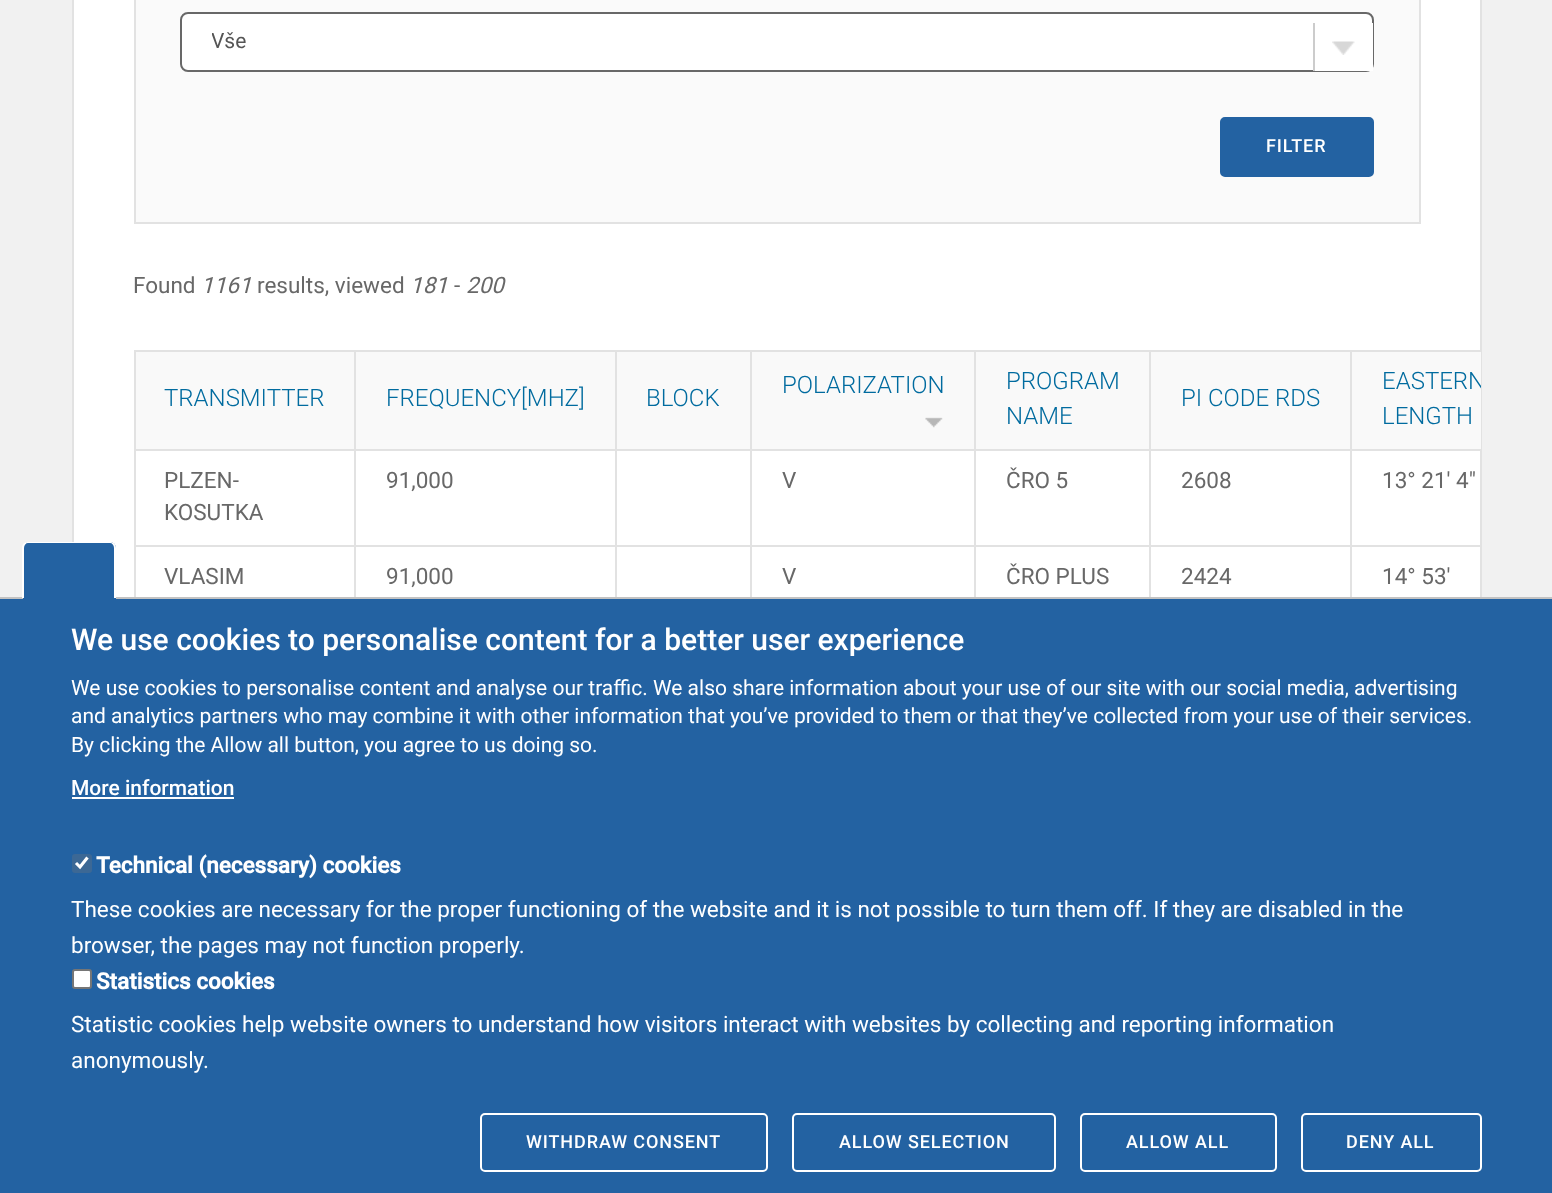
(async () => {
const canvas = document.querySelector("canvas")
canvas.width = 1552
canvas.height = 1193
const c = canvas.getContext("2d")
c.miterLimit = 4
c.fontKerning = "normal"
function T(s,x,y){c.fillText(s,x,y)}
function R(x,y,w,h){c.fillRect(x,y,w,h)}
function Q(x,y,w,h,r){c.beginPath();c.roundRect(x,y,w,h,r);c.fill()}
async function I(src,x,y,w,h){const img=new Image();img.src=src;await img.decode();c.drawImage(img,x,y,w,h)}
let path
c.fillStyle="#f1f1f1"
R(0,0,1552,1193)
c.fillStyle="#fff"
R(74,0,1406,597)
c.strokeStyle="#e2e2e2"
c.lineWidth=2
c.strokeRect(73,-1,1408,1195)
c.fillStyle="#fafafa"
c.beginPath()
c.rect(135,-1,1285,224)
c.fill()
c.stroke()
c.fillStyle="#fff"
c.beginPath()
c.roundRect(181,13,1192,58,7)
c.fill()
c.strokeStyle="#686868"
c.stroke()
c.save()
c.beginPath()
c.rect(212,27,1131,29)
c.clip()
c.font="21px Roboto"
c.fillStyle="#555"
T("Vše",211,48)
c.restore()
R(1315,23,58,48)
await I("1.png",1332,41,23,14)
c.fillStyle="#ccc"
R(1313,23,2,48)
c.fillStyle="#2362a2"
c.beginPath()
c.roundRect(1221,118,152,58,4)
c.fill()
c.strokeStyle="#2362a2"
c.stroke()
c.letterSpacing="0.9px"
c.font="500 18px Roboto"
c.fillStyle="#fff"
T("FILTER",1266,152)
c.letterSpacing="0px"
c.font="22.5px Roboto"
c.fillStyle="#686868"
T("Found",133,293)
c.font="italic 22.5px Roboto"
T("1161",201,293)
c.font="22.5px Roboto"
T("results, viewed",257,293)
c.font="italic 22.5px Roboto"
T("181",410,293)
c.font="22.5px Roboto"
T("-",454,293)
c.font="italic 22.5px Roboto"
T("200",466,293)
c.fillStyle="#e2e2e2"
R(134,350,1347,2)
R(134,350,2,247)
c.fillStyle="#f9f9f9"
R(136,352,218,97)
c.fillStyle="#e2e2e2"
R(1350,545,2,52)
R(1350,545,131,2)
R(1350,449,2,97)
R(1350,449,131,2)
R(1350,350,2,100)
R(1149,545,2,52)
R(1149,545,203,2)
R(1149,449,2,97)
R(1149,449,203,2)
R(1149,350,2,100)
R(974,545,2,52)
R(974,545,177,2)
R(974,449,2,97)
R(974,449,177,2)
R(974,350,2,100)
R(750,545,2,52)
R(750,545,225,2)
R(750,449,2,97)
R(750,449,225,2)
R(750,350,2,100)
R(615,545,2,52)
R(615,545,137,2)
R(615,449,2,97)
R(615,449,137,2)
R(615,350,2,100)
R(354,545,2,52)
R(354,545,263,2)
R(354,449,2,97)
R(354,449,263,2)
R(354,350,2,100)
R(134,449,222,2)
c.font="300 24px Roboto"
c.fillStyle="#006b9f"
T("TRANSMITTER",164,406)
c.fillStyle="#f9f9f9"
R(356,352,259,97)
c.fillStyle="#006b9f"
T("FREQUENCY[MHZ]",386,406)
c.fillStyle="#f9f9f9"
R(617,352,133,97)
c.fillStyle="#006b9f"
T("BLOCK",646,406)
c.fillStyle="#f9f9f9"
R(752,352,222,97)
c.fillStyle="#006b9f"
T("POLARIZATION",782,393)
await I("2.png",925,417,18,11)
c.fillStyle="#f9f9f9"
R(976,352,173,97)
c.fillStyle="#006b9f"
T("PROGRAM",1006,389)
T("NAME",1006,424)
c.fillStyle="#f9f9f9"
R(1151,352,199,97)
c.fillStyle="#006b9f"
T("PI CODE RDS",1181,406)
c.fillStyle="#f9f9f9"
R(1352,352,129,97)
c.save()
c.beginPath()
c.rect(74,0,1407,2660)
c.clip()
c.fillStyle="#006b9f"
T("EASTERN",1382,389)
c.restore()
c.fillStyle="#006b9f"
T("LENGTH",1382,424)
c.fillStyle="#e2e2e2"
R(134,545,222,2)
c.font="22.5px Roboto"
c.fillStyle="#686868"
T("PLZEN-",164,488)
T("KOSUTKA",164,520)
T("91,000",386,488)
T("V",782,488)
T("ČRO 5",1006,488)
T("2608",1181,488)
T("13° 21' 4\"",1382,488)
T("VLASIM",164,584)
T("91,000",386,584)
T("V",782,584)
T("ČRO PLUS",1006,584)
T("2424",1181,584)
T("14° 53'",1382,584)
c.fillStyle="#2362a2"
R(0,599,1552,594)
c.fillStyle="#c2c2c2"
R(0,597,1552,2)
c.fillStyle="#2362a2"
c.beginPath()
c.roundRect(23,542,93,57,[6,6,0,0])
c.fill()
c.fillStyle="#fff"
path = new Path2D("M28 542h82c3 0 6 2 6 6v50h-94v-50c0-4 3-6 6-6zm0 1h82c2 0 4 2 4 5v50h-90v-50c0-3 2-5 4-5z")
c.fill(path,"evenodd")
c.font="500 30px Roboto"
T("We use cookies to personalise content for a better user experience",71,650)
c.font="21px Roboto"
T("We use cookies to personalise content and analyse our traffic. We also share information about your use of our site with our social media, advertising",71,695)
T("and analytics partners who may combine it with other information that you’ve provided to them or that they’ve collected from your use of their services.",71,723)
T("By clicking the Allow all button, you agree to us doing so.",71,752)
c.font="500 21px Roboto"
T("More information",71,795)
R(72,797,162,2)
c.fillStyle="#3c6895"
Q(72,854,20,19,3)
path = new Path2D("M76 863l4 4l7.5-9.5")
c.strokeStyle="#fff"
c.lineWidth=3.1
c.stroke(path)
c.font="bold 22.5px Roboto"
c.fillStyle="#fff"
T("Technical (necessary) cookies",96,873)
c.font="22.5px Roboto"
T("These cookies are necessary for the proper functioning of the website and it is not possible to turn them off. If they are disabled in the",71,917)
T("browser, the pages may not function properly.",71,953)
c.beginPath()
c.roundRect(73,970,18,18,2)
c.fill()
c.strokeStyle="#767676"
c.lineWidth=2
c.stroke()
c.font="bold 22.5px Roboto"
T("Statistics cookies",96,989)
c.font="22.5px Roboto"
T("Statistic cookies help website owners to understand how visitors interact with websites by collecting and reporting information",71,1032)
T("anonymously.",71,1068)
c.beginPath()
c.roundRect(481,1114,286,57,4)
c.strokeStyle="#fff"
c.stroke()
c.letterSpacing="0.9px"
c.font="500 18px Roboto"
T("WITHDRAW CONSENT",526,1148)
c.beginPath()
c.roundRect(793,1114,262,57,4)
c.stroke()
T("ALLOW SELECTION",839,1148)
c.beginPath()
c.roundRect(1081,1114,195,57,4)
c.stroke()
T("ALLOW ALL",1126,1148)
c.beginPath()
c.roundRect(1302,1114,179,57,4)
c.stroke()
T("DENY ALL",1346,1148)
})()
